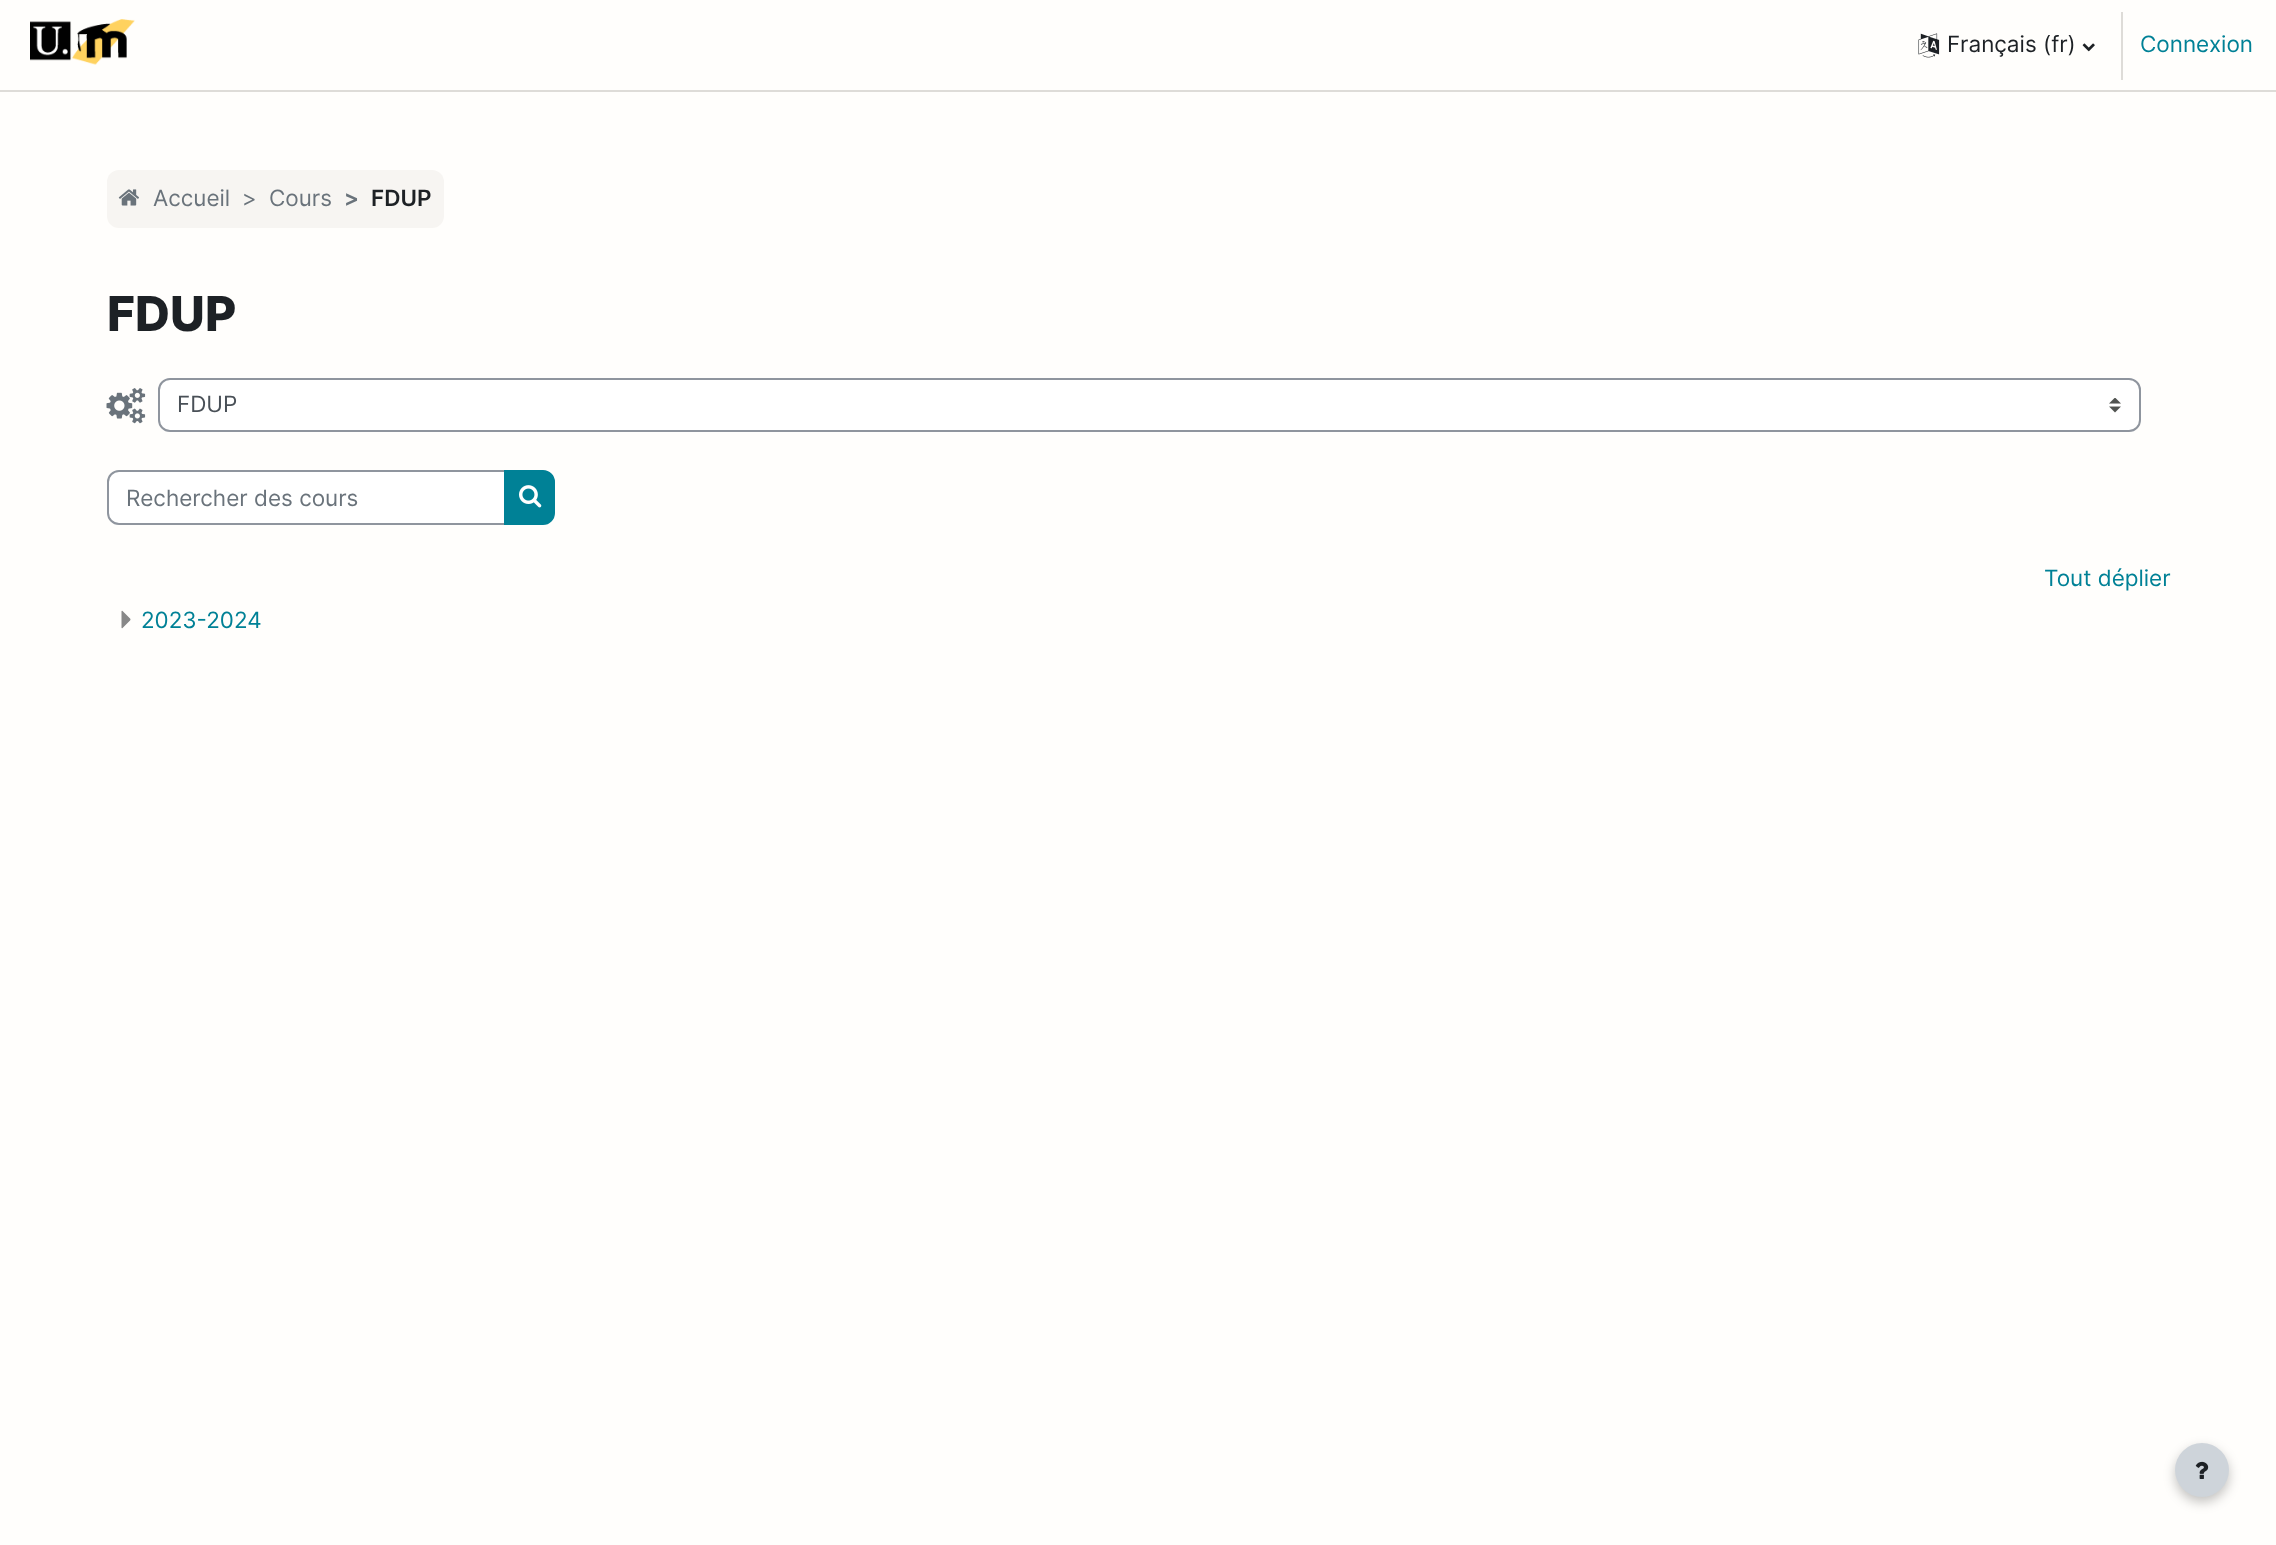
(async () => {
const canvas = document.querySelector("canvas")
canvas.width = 2276
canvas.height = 1545
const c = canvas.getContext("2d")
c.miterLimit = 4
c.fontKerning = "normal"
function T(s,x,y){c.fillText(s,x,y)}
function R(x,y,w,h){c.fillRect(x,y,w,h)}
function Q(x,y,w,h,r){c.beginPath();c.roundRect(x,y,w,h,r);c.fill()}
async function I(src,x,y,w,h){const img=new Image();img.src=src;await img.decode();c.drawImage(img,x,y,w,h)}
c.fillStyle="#fffefc"
R(0,0,2276,1545)
c.fillStyle="#dedcd8"
R(0,90,2276,2)
await I("1.png",30,19,105,46)
await I("2.png",1918,33,22,25)
c.font="22.5px Inter"
c.fillStyle="#1d2125"
T("Français (fr)",1947,52)
await I("3.png",2082,43,13,9)
c.fillStyle="#dedcd8"
R(2121,12,2,68)
c.fillStyle="#008196"
T("Connexion",2140,52)
c.fillStyle="#f7f5f2"
Q(107,170,337,58,12)
await I("4.png",118,189,21,17)
c.fillStyle="#6a737b"
T("Accueil",153,206)
T(">",242,206)
T("Cours",269,206)
c.font="600 22.5px Inter"
T(">",344,206)
c.fillStyle="#1d2125"
T("FDUP",371,206)
c.font="800 48px Inter"
T("FDUP",107,331)
await I("5.png",106,388,40,36)
c.fillStyle="#fff"
Q(158,378,1983,54,12)
await I("6.png",2109,398,12,15)
c.beginPath()
c.roundRect(159,379,1981,52,11)
c.strokeStyle="#8f959e"
c.lineWidth=2
c.stroke()
c.font="22.5px Inter"
c.fillStyle="#495057"
T("FDUP",177,412)
c.fillStyle="#fff"
c.beginPath()
c.roundRect(108,471,397,53,[11,0,0,11])
c.fill()
c.stroke()
c.fillStyle="#6a737b"
T("Rechercher des cours",126,506)
c.fillStyle="#008196"
c.beginPath()
c.roundRect(505,471,49,53,[0,11,11,0])
c.fill()
c.strokeStyle="#008196"
c.stroke()
await I("7.png",519,485,23,23)
T("Tout déplier",2044,586)
await I("8.png",121,610,10,19)
T("2023-2024",141,628)
c.fillStyle="#0000003d"
c.filter="blur(6px)"
c.beginPath()
c.roundRect(2175,1448,54,54,27)
c.fill()
c.filter="none"
c.fillStyle="#ced4da"
c.beginPath()
c.arc(2202,1470,27,0,7)
c.fill()
await I("9.png",2195,1461,14,18)
})()
